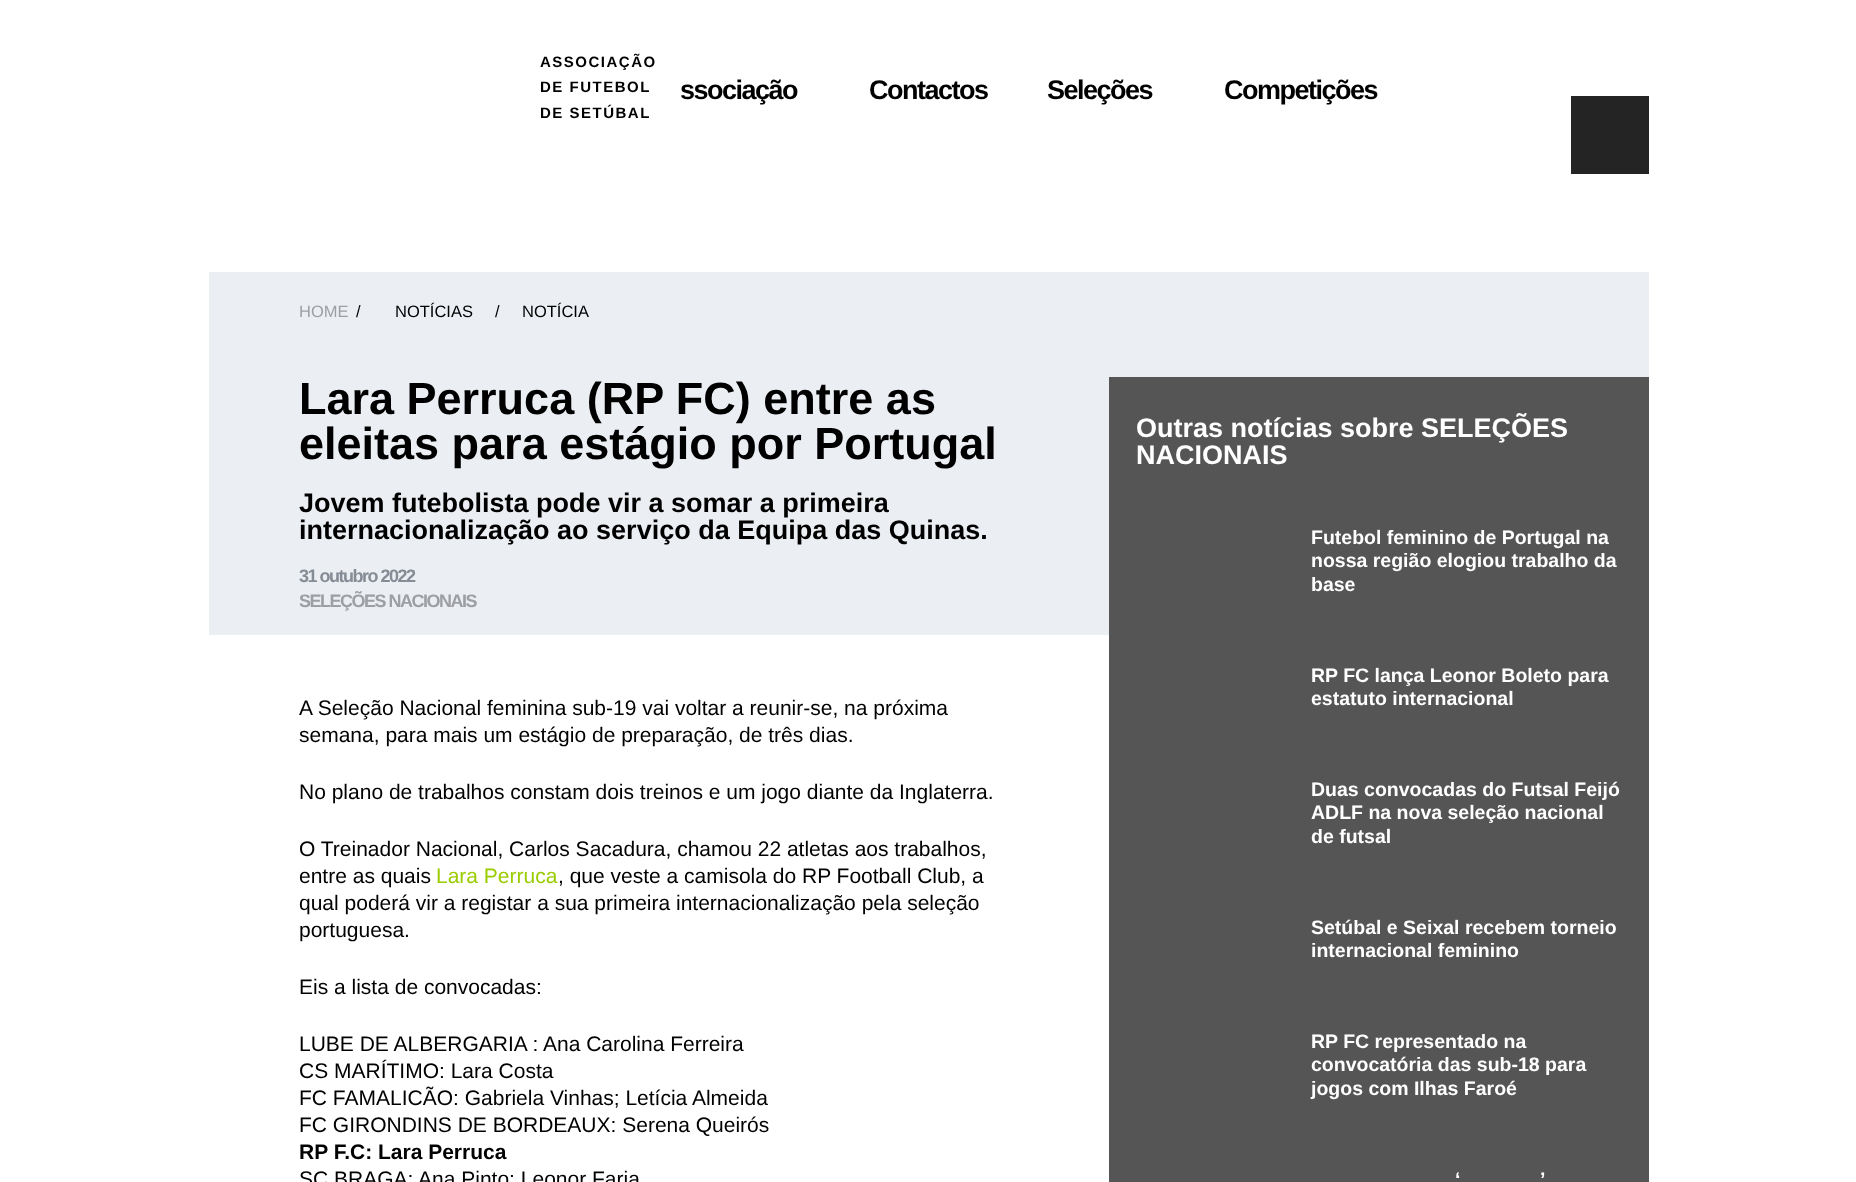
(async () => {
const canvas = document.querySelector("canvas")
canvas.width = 1856
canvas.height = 1182
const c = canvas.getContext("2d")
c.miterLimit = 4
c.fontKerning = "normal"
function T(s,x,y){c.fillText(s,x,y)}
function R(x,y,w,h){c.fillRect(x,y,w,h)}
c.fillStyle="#fff"
R(0,0,1856,1182)
c.letterSpacing="1.5px"
c.font="bold 15px Liberation Sans"
c.fillStyle="#000"
T("ASSOCIAÇÃO",540,67)
T("DE FUTEBOL",540,92)
T("DE SETÚBAL",540,118)
c.letterSpacing="-1.5px"
c.font="bold 27px Liberation Sans"
T("ssociação",680,99)
T("Contactos",869,99)
T("Seleções",1047,99)
T("Competições",1224,99)
c.fillStyle="#242425"
R(1571,96,78,78)
c.fillStyle="#ebeef3"
R(209,272,1440,105)
c.letterSpacing="0px"
c.font="16.5px Liberation Sans"
c.fillStyle="#9e9fa4"
T("HOME",299,317)
c.fillStyle="#000"
T("/",356,317)
T("NOTÍCIAS",395,317)
T("/",495,317)
T("NOTÍCIA",522,317)
c.fillStyle="#ebeef3"
R(209,377,900,258)
c.font="bold 45px Liberation Sans"
c.fillStyle="#000"
T("Lara Perruca (RP FC) entre as",299,414)
T("eleitas para estágio por Portugal",299,459)
c.font="bold 27px Liberation Sans"
T("Jovem futebolista pode vir a somar a primeira",299,512)
T("internacionalização ao serviço da Equipa das Quinas.",299,539)
c.letterSpacing="-1.5px"
c.font="bold 18px Liberation Sans"
c.fillStyle="#868c95"
T("31 outubro 2022",299,582)
c.fillStyle="#9e9fa4"
T("SELEÇÕES NACIONAIS",299,607)
c.letterSpacing="0px"
c.font="21px Liberation Sans"
c.fillStyle="#000"
T("A Seleção Nacional feminina sub-19 vai voltar a reunir-se, na próxima",299,715)
T("semana, para mais um estágio de preparação, de três dias.",299,742)
T("No plano de trabalhos constam dois treinos e um jogo diante da Inglaterra.",299,799)
T("O Treinador Nacional, Carlos Sacadura, chamou 22 atletas aos trabalhos,",299,856)
T("entre as quais",299,883)
c.fillStyle="#9bcc00"
T("Lara Perruca",436,883)
c.fillStyle="#000"
T(", que veste a camisola do RP Football Club, a",558,883)
T("qual poderá vir a registar a sua primeira internacionalização pela seleção",299,910)
T("portuguesa.",299,937)
T("Eis a lista de convocadas:",299,994)
T("LUBE DE ALBERGARIA : Ana Carolina Ferreira",299,1051)
T("CS MARÍTIMO: Lara Costa",299,1078)
T("FC FAMALICÃO: Gabriela Vinhas; Letícia Almeida",299,1105)
T("FC GIRONDINS DE BORDEAUX: Serena Queirós",299,1132)
c.font="bold 21px Liberation Sans"
T("RP F.C: Lara Perruca",299,1159)
c.font="21px Liberation Sans"
T("SC BRAGA: Ana Pinto; Leonor Faria",299,1186)
c.fillStyle="#555"
R(1109,377,540,805)
c.font="bold 27px Liberation Sans"
c.fillStyle="#fff"
T("Outras notícias sobre SELEÇÕES",1136,437)
T("NACIONAIS",1136,464)
c.font="bold 19.5px Liberation Sans"
T("Futebol feminino de Portugal na",1311,544)
T("nossa região elogiou trabalho da",1311,567)
T("base",1311,591)
T("RP FC lança Leonor Boleto para",1311,682)
T("estatuto internacional",1311,705)
T("Duas convocadas do Futsal Feijó",1311,796)
T("ADLF na nova seleção nacional",1311,819)
T("de futsal",1311,843)
T("Setúbal e Seixal recebem torneio",1311,934)
T("internacional feminino",1311,957)
T("RP FC representado na",1311,1048)
T("convocatória das sub-18 para",1311,1071)
T("jogos com Ilhas Faroé",1311,1095)
T("‘",1455,1186)
T("’",1540,1186)
})()
